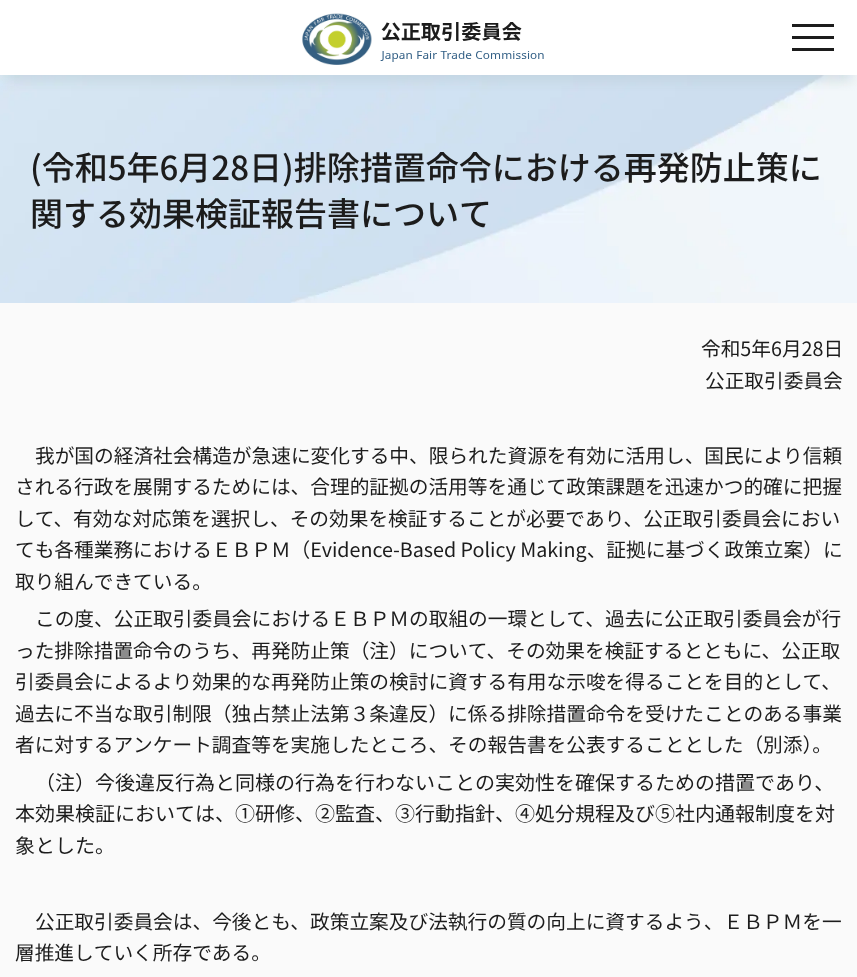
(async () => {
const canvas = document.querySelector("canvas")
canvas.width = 857
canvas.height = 977
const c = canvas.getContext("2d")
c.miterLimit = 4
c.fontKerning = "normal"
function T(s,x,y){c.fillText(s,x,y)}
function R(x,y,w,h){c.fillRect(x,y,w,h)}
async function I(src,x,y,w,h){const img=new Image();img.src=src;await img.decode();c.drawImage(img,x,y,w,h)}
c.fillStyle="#fff"
R(0,0,857,977)
await I("2.png",0,75,857,228)
c.save()
c.beginPath()
c.rect(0,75,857,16)
c.clip()
c.fillStyle="#b7cad280"
c.filter="blur(6px)"
c.beginPath()
c.rect(6,18,846,63)
c.fill()
c.filter="none"
c.restore()
c.fillStyle="#1c1c1c"
R(792,24,42,3)
R(792,36,42,3)
R(792,48,42,3)
await I("1.png",302,13,242,52)
c.fillStyle="#fafafa"
R(0,303,857,674)
c.font="500 33px Noto Sans JP"
c.fillStyle="#1c1c1c"
T("(令和5年6月28日)排除措置命令における再発防止策に",30,180)
T("関する効果検証報告書について",30,226)
c.font="19.7px Noto Sans JP"
T("令和5年6月28日",701,356)
T("公正取引委員会",705,388)
T("我が国の経済社会構造が急速に変化する中、限られた資源を有効に活用し、国民により信頼",35,463)
T("される行政を展開するためには、合理的証拠の活用等を通じて政策課題を迅速かつ的確に把握",15,494)
T("して、有効な対応策を選択し、その効果を検証することが必要であり、公正取引委員会におい",15,526)
T("ても各種業務におけるＥＢＰＭ（Evidence-Based Policy Making、証拠に基づく政策立案）に",15,557)
T("取り組んできている。",15,589)
T("この度、公正取引委員会におけるＥＢＰＭの取組の一環として、過去に公正取引委員会が行",35,626)
T("った排除措置命令のうち、再発防止策（注）について、その効果を検証するとともに、公正取",15,658)
T("引委員会によるより効果的な再発防止策の検討に資する有用な示唆を得ることを目的として、",15,689)
T("過去に不当な取引制限（独占禁止法第３条違反）に係る排除措置命令を受けたことのある事業",15,721)
T("者に対するアンケート調査等を実施したところ、その報告書を公表することとした（別添）。",15,752)
c.font="20px Noto Sans JP"
T("（注）今後違反行為と同様の行為を行わないことの実効性を確保するための措置であり、",35,790)
T("本効果検証においては、①研修、②監査、③行動指針、④処分規程及び⑤社内通報制度を対",15,821)
T("象とした。",15,853)
c.font="19.7px Noto Sans JP"
T("公正取引委員会は、今後とも、政策立案及び法執行の質の向上に資するよう、ＥＢＰＭを一",35,929)
T("層推進していく所存である。",15,960)
})()
